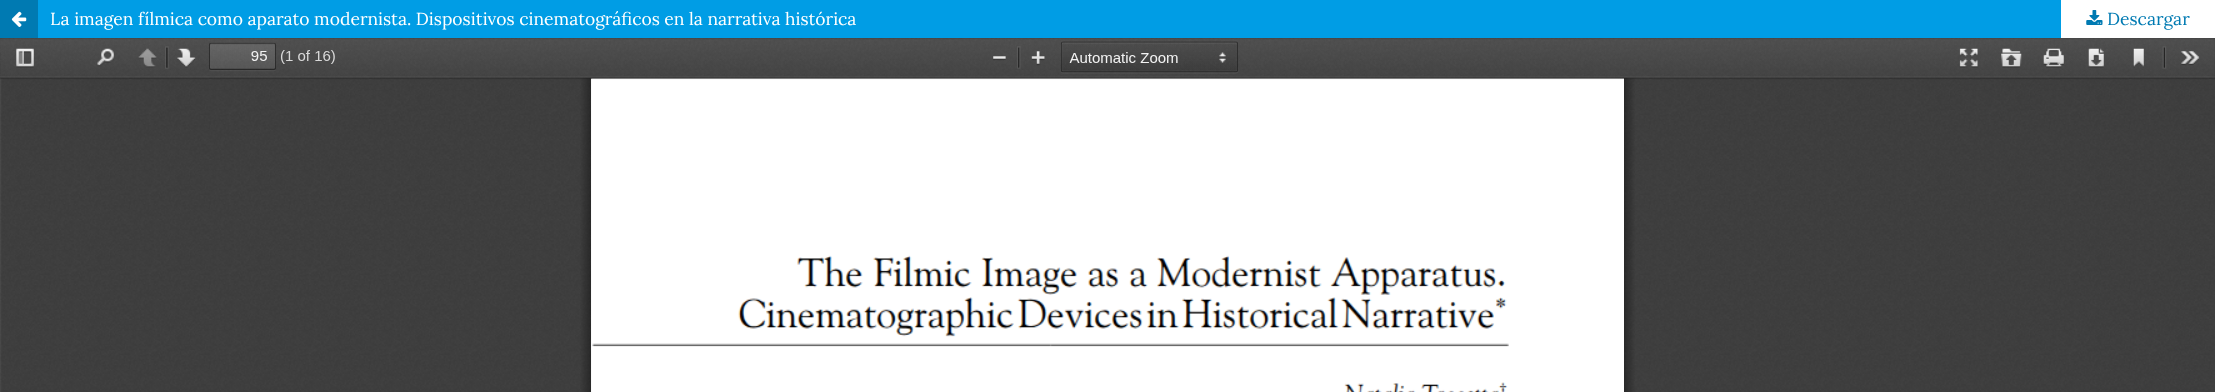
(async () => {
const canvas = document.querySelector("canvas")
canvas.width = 2215
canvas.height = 392
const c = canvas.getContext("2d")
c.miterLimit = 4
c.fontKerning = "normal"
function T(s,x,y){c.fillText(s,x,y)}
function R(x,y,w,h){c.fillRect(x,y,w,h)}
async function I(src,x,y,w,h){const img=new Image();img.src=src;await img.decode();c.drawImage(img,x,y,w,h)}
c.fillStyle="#fff"
R(0,0,2215,392)
c.fillStyle="#009de5"
R(38,0,2023,38)
c.fillStyle="#007ab2"
R(0,0,38,38)
await I("1.png",11,11,16,16)
c.font="17.5px Lora"
c.fillStyle="#fff"
T("La imagen fílmica como aparato modernista. Dispositivos cinematográficos en la narrativa histórica",50,25)
await I("2.png",2086,10,17,15)
c.fillStyle="#007ab2"
T("Descargar",2107,25)
await I("3.png",0,38,2215,354)
})()
